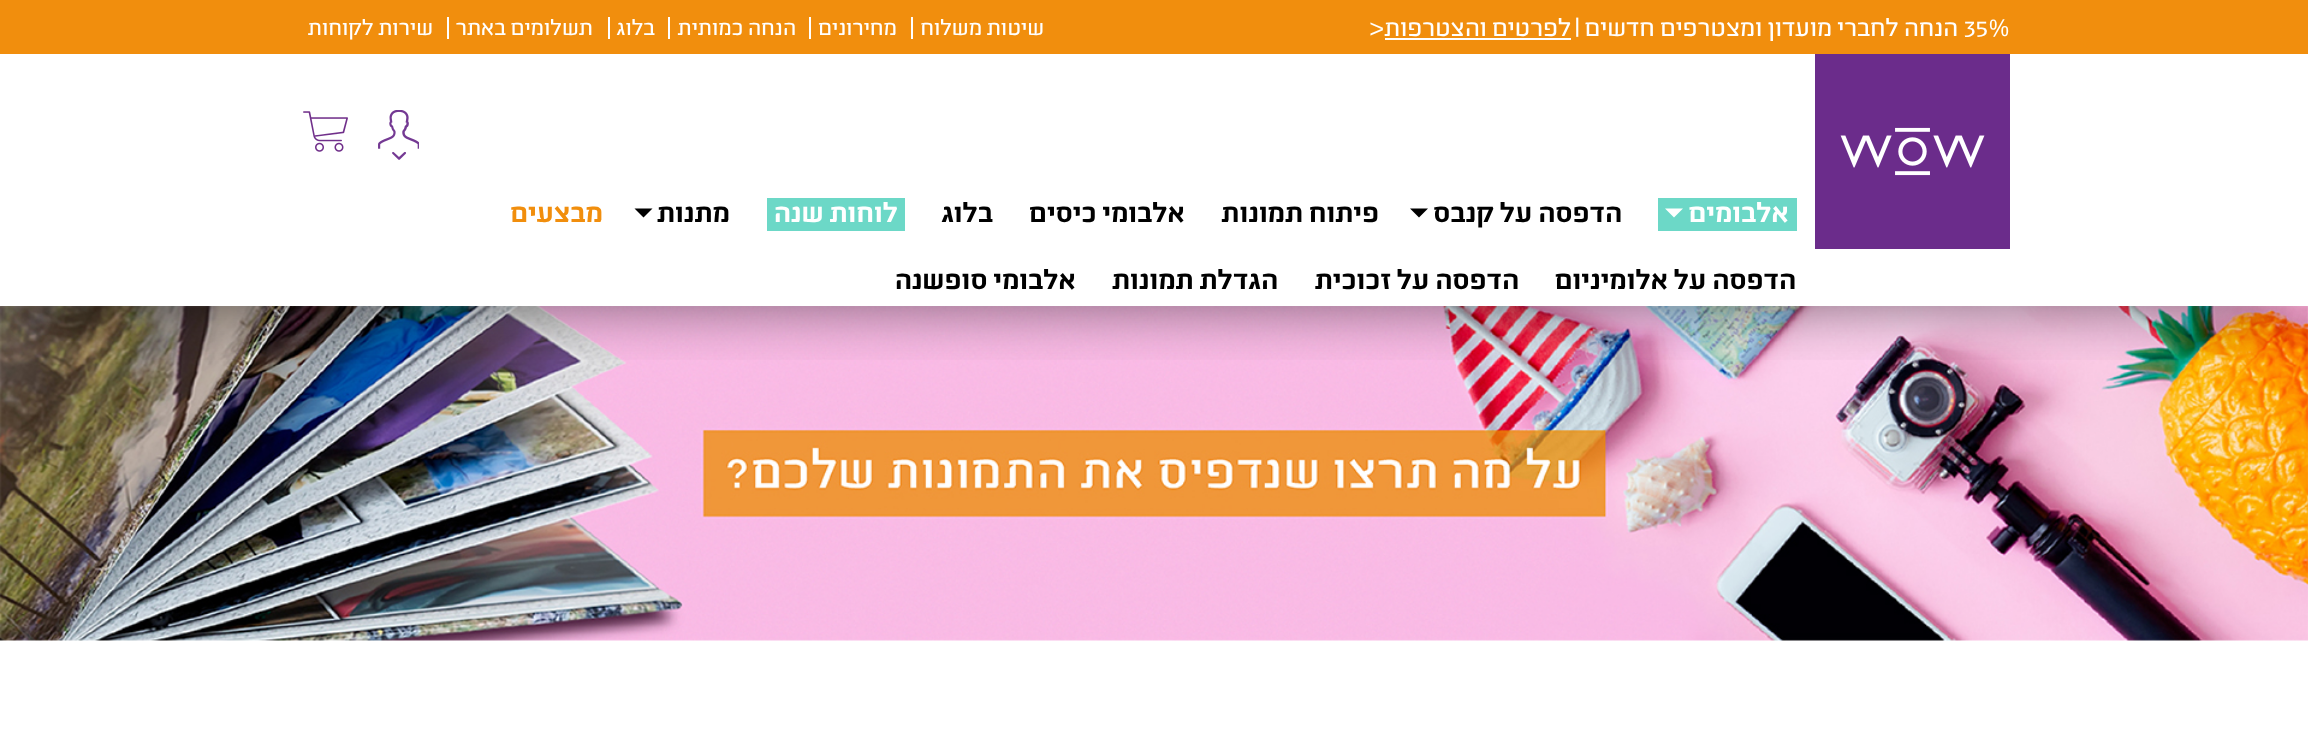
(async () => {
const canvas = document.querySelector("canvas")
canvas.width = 2308
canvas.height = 729
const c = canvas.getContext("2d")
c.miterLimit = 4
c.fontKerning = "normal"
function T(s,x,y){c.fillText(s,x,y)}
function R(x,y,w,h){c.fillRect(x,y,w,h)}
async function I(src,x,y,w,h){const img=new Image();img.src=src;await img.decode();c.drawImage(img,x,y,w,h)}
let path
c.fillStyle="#fff"
R(0,0,2308,729)
c.fillStyle="#f18e0d"
R(0,0,2308,54)
c.font="27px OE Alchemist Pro"
c.fillStyle="#fff"
T("35%",1964,36)
c.direction="rtl"
T("הנחה לחברי מועדון ומצטרפים חדשים |",1958,36)
T("לפרטים והצטרפות",1571,36)
R(1385,38,186,2)
c.direction="ltr"
T(">",1369,36)
c.direction="rtl"
c.font="24px OE Alchemist Pro"
T("שיטות משלוח",1044,35)
R(911,17,2,22)
T("מחירונים",897,35)
R(809,17,2,22)
T("הנחה כמותית",796,35)
R(668,17,2,22)
T("בלוג",655,35)
R(608,17,2,22)
T("תשלומים באתר",593,35)
R(447,17,2,22)
T("שירות לקוחות",433,35)
await I("4.png",0,306,2308,335)
c.save()
c.beginPath()
c.rect(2,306,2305,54)
c.clip()
c.fillStyle="#00000080"
c.filter="blur(31px)"
c.beginPath()
c.rect(45,144,2219,162)
c.fill()
c.filter="none"
c.restore()
await I("1.png",1815,54,195,195)
await I("2.png",378,110,41,50)
await I("3.png",303,111,45,41)
c.fillStyle="#6cd8c7"
R(1658,198,139,33)
c.font="bold 30px OE Alchemist Pro"
c.fillStyle="#fff"
T("אלבומים",1789,222)
path = new Path2D("M1665 208.5h18l-9 9z")
c.fill(path)
c.fillStyle="#000"
T("הדפסה על קנבס",1622,222)
path = new Path2D("M1410 208.5h18l-9 9z")
c.fill(path)
T("פיתוח תמונות",1379,222)
T("אלבומי כיסים",1185,222)
T("בלוג",993,222)
c.fillStyle="#6cd8c7"
R(767,198,138,33)
c.fillStyle="#fff"
T("לוחות שנה",898,222)
c.fillStyle="#000"
T("מתנות",730,222)
path = new Path2D("M634.5 208.5h18l-9 9z")
c.fill(path)
c.fillStyle="#f18e0d"
T("מבצעים",603,222)
c.fillStyle="#000"
T("הדפסה על אלומיניום",1796,289)
T("הדפסה על זכוכית",1519,289)
T("הגדלת תמונות",1278,289)
T("אלבומי סופשנה",1076,289)
})()
